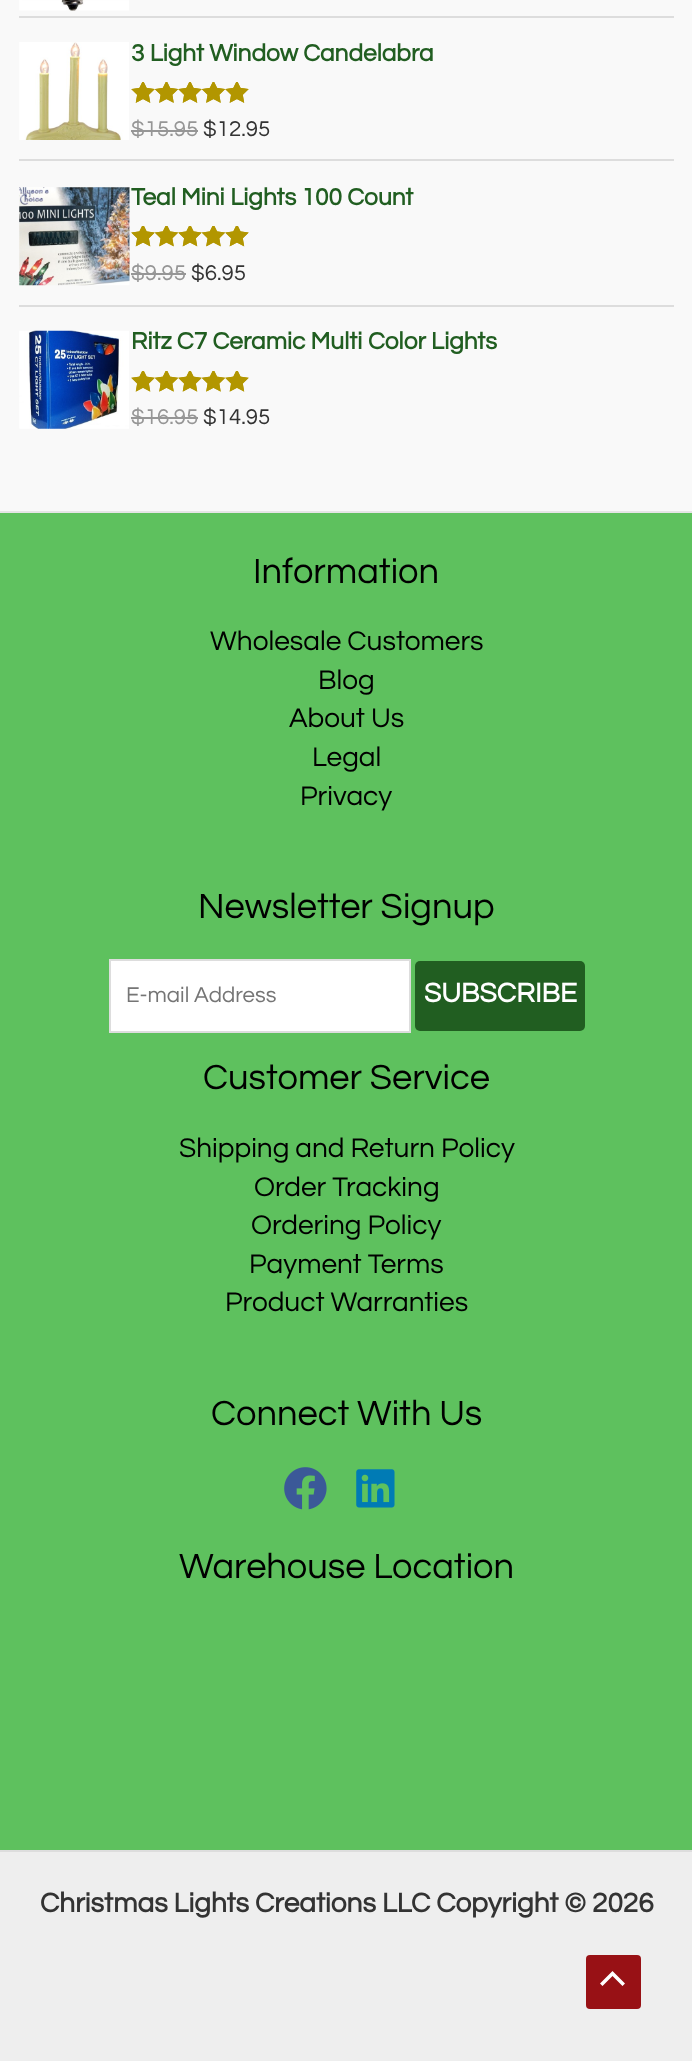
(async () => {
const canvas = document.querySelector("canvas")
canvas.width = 692
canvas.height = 2061
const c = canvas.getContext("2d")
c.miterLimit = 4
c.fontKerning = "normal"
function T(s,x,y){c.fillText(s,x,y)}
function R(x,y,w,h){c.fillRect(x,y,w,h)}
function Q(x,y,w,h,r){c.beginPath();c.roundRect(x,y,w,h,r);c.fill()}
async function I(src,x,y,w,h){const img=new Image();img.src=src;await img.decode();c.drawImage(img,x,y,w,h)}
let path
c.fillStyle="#f9f9f9"
R(0,0,692,2061)
c.fillStyle="#ddd"
R(19,16,655,2)
await I("1.png",19,0,110,11)
R(19,159,655,2)
await I("2.png",19,42,110,98)
c.font="bold 24.5px Questrial"
c.fillStyle="#215e21"
T("3 Light Window Candelabra",131,61)
await I("3.png",131,82,118,21)
await I("4.png",131,82,118,21)
c.font="22.25px Questrial"
c.fillStyle="#969696"
T("$15.95",131,136)
R(131,130,67,2)
c.fillStyle="#333"
T("$12.95",203,136)
c.fillStyle="#ddd"
R(19,305,655,2)
await I("5.png",19,187,111,99)
c.font="bold 24.5px Questrial"
c.fillStyle="#215e21"
T("Teal Mini Lights 100 Count",131,205)
await I("6.png",131,226,118,21)
await I("7.png",131,226,118,21)
c.font="22.25px Questrial"
c.fillStyle="#969696"
T("$9.95",131,280)
R(131,273,55,2)
c.fillStyle="#333"
T("$6.95",191,280)
await I("8.png",19,330,110,99)
c.font="bold 24.5px Questrial"
c.fillStyle="#215e21"
T("Ritz C7 Ceramic Multi Color Lights",131,349)
await I("9.png",131,371,118,21)
await I("10.png",131,371,118,21)
c.font="22.25px Questrial"
c.fillStyle="#969696"
T("$16.95",131,424)
R(131,417,67,2)
c.fillStyle="#333"
T("$14.95",203,424)
c.fillStyle="#5ec15e"
R(0,513,692,1337)
c.fillStyle="#e5e5e5"
R(0,511,692,2)
c.font="36.25px Questrial"
c.fillStyle="#000"
T("Information",253,583)
c.font="28px Questrial"
T("Wholesale Customers",210,650)
T("Blog",318,689)
T("About Us",289,727)
T("Legal",312,766)
T("Privacy",300,805)
c.font="36.25px Questrial"
T("Newsletter Signup",198,918)
c.fillStyle="#fff"
c.beginPath()
c.rect(110,960,300,72)
c.fill()
c.strokeStyle="#ddd"
c.lineWidth=2
c.stroke()
c.font="22.25px Questrial"
c.fillStyle="#757575"
T("E-mail Address",126,1002)
c.fillStyle="#215e21"
Q(415,961,170,70,5)
c.font="bold 28px Questrial"
c.fillStyle="#fff"
T("SUBSCRIBE",424,1002)
c.font="36.25px Questrial"
c.fillStyle="#000"
T("Customer Service",203,1089)
c.font="28px Questrial"
T("Shipping and Return Policy",179,1157)
T("Order Tracking",254,1196)
T("Ordering Policy",251,1234)
T("Payment Terms",249,1273)
T("Product Warranties",225,1311)
c.font="36.25px Questrial"
T("Connect With Us",211,1425)
await I("11.png",284,1467,43,43)
await I("12.png",356,1469,39,39)
T("Warehouse Location",179,1578)
c.fillStyle="#eee"
R(0,1852,692,209)
c.fillStyle="#ddd"
R(0,1850,692,2)
c.font="bold 28px Questrial"
c.fillStyle="#333"
T("Christmas Lights Creations LLC Copyright © 2026",40,1912)
c.fillStyle="#981115"
Q(586,1955,55,54,4)
c.fillStyle="#fff"
path = new Path2D("M625 1983.5l-12.5-12.5l-12.5 12.5l2.5 2.5l10-10l10 10z")
c.fill(path)
})()
